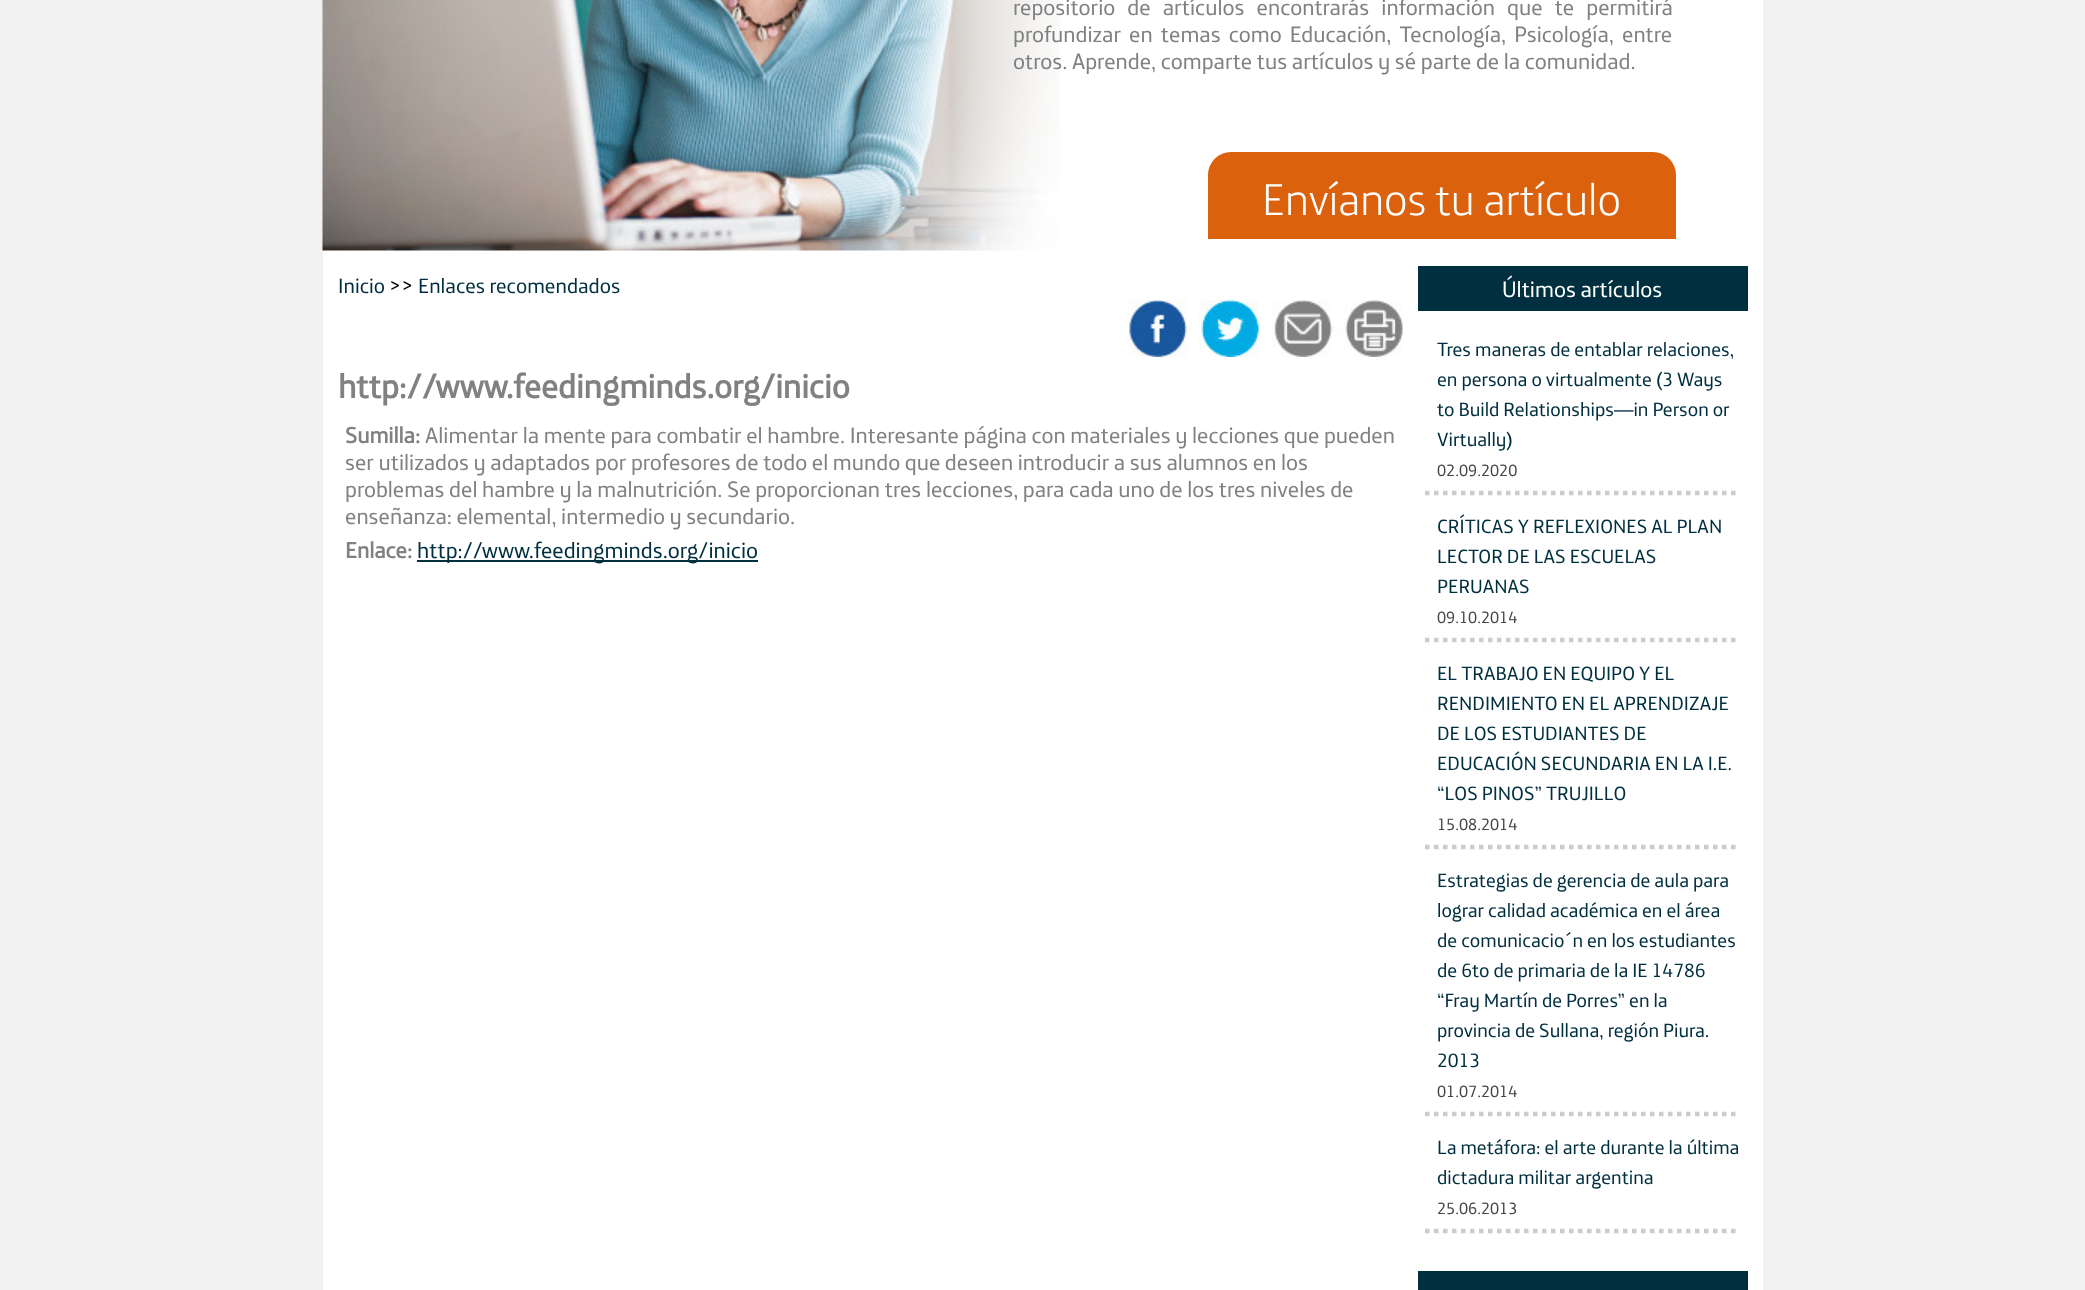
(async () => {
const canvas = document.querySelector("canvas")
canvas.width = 2085
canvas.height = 1290
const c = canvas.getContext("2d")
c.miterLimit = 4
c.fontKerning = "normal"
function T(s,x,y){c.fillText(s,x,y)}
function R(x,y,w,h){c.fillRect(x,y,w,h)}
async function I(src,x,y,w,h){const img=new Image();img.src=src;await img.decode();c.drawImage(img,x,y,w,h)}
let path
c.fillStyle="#f1f1f1"
R(0,0,2085,1290)
c.fillStyle="#fff"
R(323,0,1440,1290)
await I("1.png",322,0,738,251)
c.wordSpacing="7.5px"
c.font="22.5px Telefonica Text"
c.fillStyle="#818181"
T("repositorio de artículos encontrarás información que te permitirá",1013,15)
c.wordSpacing="3.5px"
T("profundizar en temas como Educación, Tecnología, Psicología, entre",1013,42)
c.wordSpacing="0px"
T("otros. Aprende, comparte tus artículos y sé parte de la comunidad.",1013,69)
c.fillStyle="#db610c"
c.beginPath()
c.roundRect(1208,152,468,87,[23,23,0,0])
c.fill()
c.font="300 45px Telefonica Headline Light"
c.fillStyle="#fff"
T("Envíanos tu artículo",1262,215)
c.font="21px Telefonica Text"
c.fillStyle="#002f3f"
T("Inicio",338,293)
c.font="22.5px Telefonica Text"
c.fillStyle="#000"
T(">>",389,293)
c.font="21px Telefonica Text"
c.fillStyle="#002f3f"
T("Enlaces recomendados",418,293)
await I("2.png",1126,300,277,57)
c.font="bold 33.75px Telefonica Text"
c.fillStyle="#818181"
T("http://www.feedingminds.org/inicio",338,398)
c.font="bold 22.5px Telefonica Text"
T("Sumilla:",345,443)
c.font="22.5px Telefonica Text"
T("Alimentar la mente para combatir el hambre. Interesante página con materiales y lecciones que pueden",425,443)
T("ser utilizados y adaptados por profesores de todo el mundo que deseen introducir a sus alumnos en los",345,470)
T("problemas del hambre y la malnutrición. Se proporcionan tres lecciones, para cada uno de los tres niveles de",345,497)
T("enseñanza: elemental, intermedio y secundario.",345,524)
c.font="bold 22.5px Telefonica Text"
T("Enlace:",345,558)
c.fillStyle="#002f3f"
R(417,560,341,2)
c.font="22.5px Telefonica Text"
T("http://www.feedingminds.org/inicio",417,558)
R(1418,266,330,45)
c.fillStyle="#fff"
T("Últimos artículos",1502,297)
path = new Path2D("M1425 493h315")
c.strokeStyle="#ccc"
c.lineWidth=4.5
c.setLineDash([4.5,4.5])
c.stroke(path)
c.font="19.5px Telefonica Text"
c.fillStyle="#002f3f"
T("Tres maneras de entablar relaciones,",1437,356)
T("en persona o virtualmente (3 Ways",1437,386)
T("to Build Relationships—in Person or",1437,416)
T("Virtually)",1437,446)
c.font="16.5px Telefonica Text"
c.fillStyle="#454545"
T("02.09.2020",1437,476)
path = new Path2D("M1425 640h315")
c.stroke(path)
c.font="19.5px Telefonica Text"
c.fillStyle="#002f3f"
T("CRÍTICAS Y REFLEXIONES AL PLAN",1437,533)
T("LECTOR DE LAS ESCUELAS",1437,563)
T("PERUANAS",1437,593)
c.font="16.5px Telefonica Text"
c.fillStyle="#454545"
T("09.10.2014",1437,623)
path = new Path2D("M1425 847h315")
c.stroke(path)
c.font="19.5px Telefonica Text"
c.fillStyle="#002f3f"
T("EL TRABAJO EN EQUIPO Y EL",1437,680)
T("RENDIMIENTO EN EL APRENDIZAJE",1437,710)
T("DE LOS ESTUDIANTES DE",1437,740)
T("EDUCACIÓN SECUNDARIA EN LA I.E.",1437,770)
T("“LOS PINOS” TRUJILLO",1437,800)
c.font="16.5px Telefonica Text"
c.fillStyle="#454545"
T("15.08.2014",1437,830)
path = new Path2D("M1425 1114h315")
c.stroke(path)
c.font="19.5px Telefonica Text"
c.fillStyle="#002f3f"
T("Estrategias de gerencia de aula para",1437,887)
T("lograr calidad académica en el área",1437,917)
T("de comunicacio´n en los estudiantes",1437,947)
T("de 6to de primaria de la IE 14786",1437,977)
T("“Fray Martín de Porres” en la",1437,1007)
T("provincia de Sullana, región Piura.",1437,1037)
T("2013",1437,1067)
c.font="16.5px Telefonica Text"
c.fillStyle="#454545"
T("01.07.2014",1437,1097)
path = new Path2D("M1425 1231h315")
c.stroke(path)
c.font="19.5px Telefonica Text"
c.fillStyle="#002f3f"
T("La metáfora: el arte durante la última",1437,1154)
T("dictadura militar argentina",1437,1184)
c.font="16.5px Telefonica Text"
c.fillStyle="#454545"
T("25.06.2013",1437,1214)
c.fillStyle="#002f3f"
R(1418,1271,330,19)
})()
